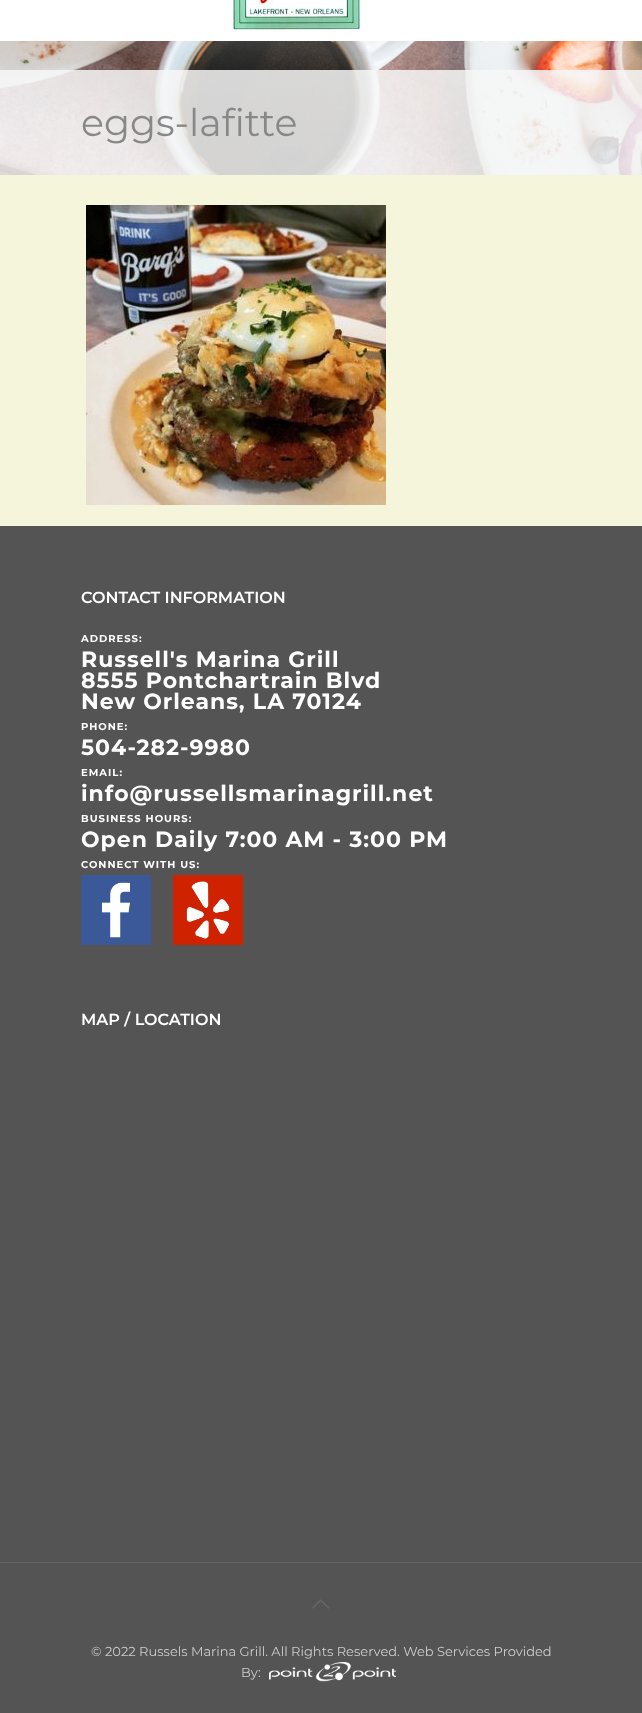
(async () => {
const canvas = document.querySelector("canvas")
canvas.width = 642
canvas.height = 1713
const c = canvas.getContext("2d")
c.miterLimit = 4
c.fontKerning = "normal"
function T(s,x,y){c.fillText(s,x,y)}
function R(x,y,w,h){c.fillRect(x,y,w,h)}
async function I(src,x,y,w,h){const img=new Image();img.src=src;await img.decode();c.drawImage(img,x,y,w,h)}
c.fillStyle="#f5f5dc"
R(0,0,642,1713)
await I("1.png",0,41,642,134)
c.fillStyle="#fff"
R(0,0,642,41)
await I("2.png",230,0,131,32)
c.fillStyle="#f7f7f7d9"
R(0,70,642,105)
c.font="38px Montserrat"
c.fillStyle="#888"
T("eggs-lafitte",81,136)
await I("3.png",86,205,300,300)
c.fillStyle="#545454"
R(0,526,642,1187)
c.font="600 16px Montserrat"
c.fillStyle="#fff"
T("CONTACT INFORMATION",81,603)
c.letterSpacing="1px"
c.font="bold 10px Montserrat"
T("ADDRESS:",81,642)
c.font="bold 22px Montserrat"
T("Russell's Marina Grill",81,667)
T("8555 Pontchartrain Blvd",81,688)
T("New Orleans, LA 70124",81,709)
c.font="bold 10px Montserrat"
T("PHONE:",81,730)
c.font="bold 22px Montserrat"
T("504-282-9980",81,755)
c.font="bold 10px Montserrat"
T("EMAIL:",81,776)
c.font="bold 22px Montserrat"
T("info@russellsmarinagrill.net",81,801)
c.font="bold 10px Montserrat"
T("BUSINESS HOURS:",81,822)
c.font="bold 22px Montserrat"
T("Open Daily 7:00 AM - 3:00 PM",81,847)
c.font="bold 10px Montserrat"
T("CONNECT WITH US:",81,868)
await I("4.png",81,875,70,70)
await I("5.png",173,875,70,70)
c.letterSpacing="0px"
c.font="600 16px Montserrat"
T("MAP / LOCATION",81,1025)
c.fillStyle="#656565"
R(0,1562,642,1)
await I("6.png",312,1599,17,10)
c.font="13px Montserrat"
c.fillStyle="#ccc"
T("© 2022 Russels Marina Grill. All Rights Reserved. Web Services Provided",91,1656)
T("By:",241,1677)
await I("7.png",269,1662,127,20)
})()
